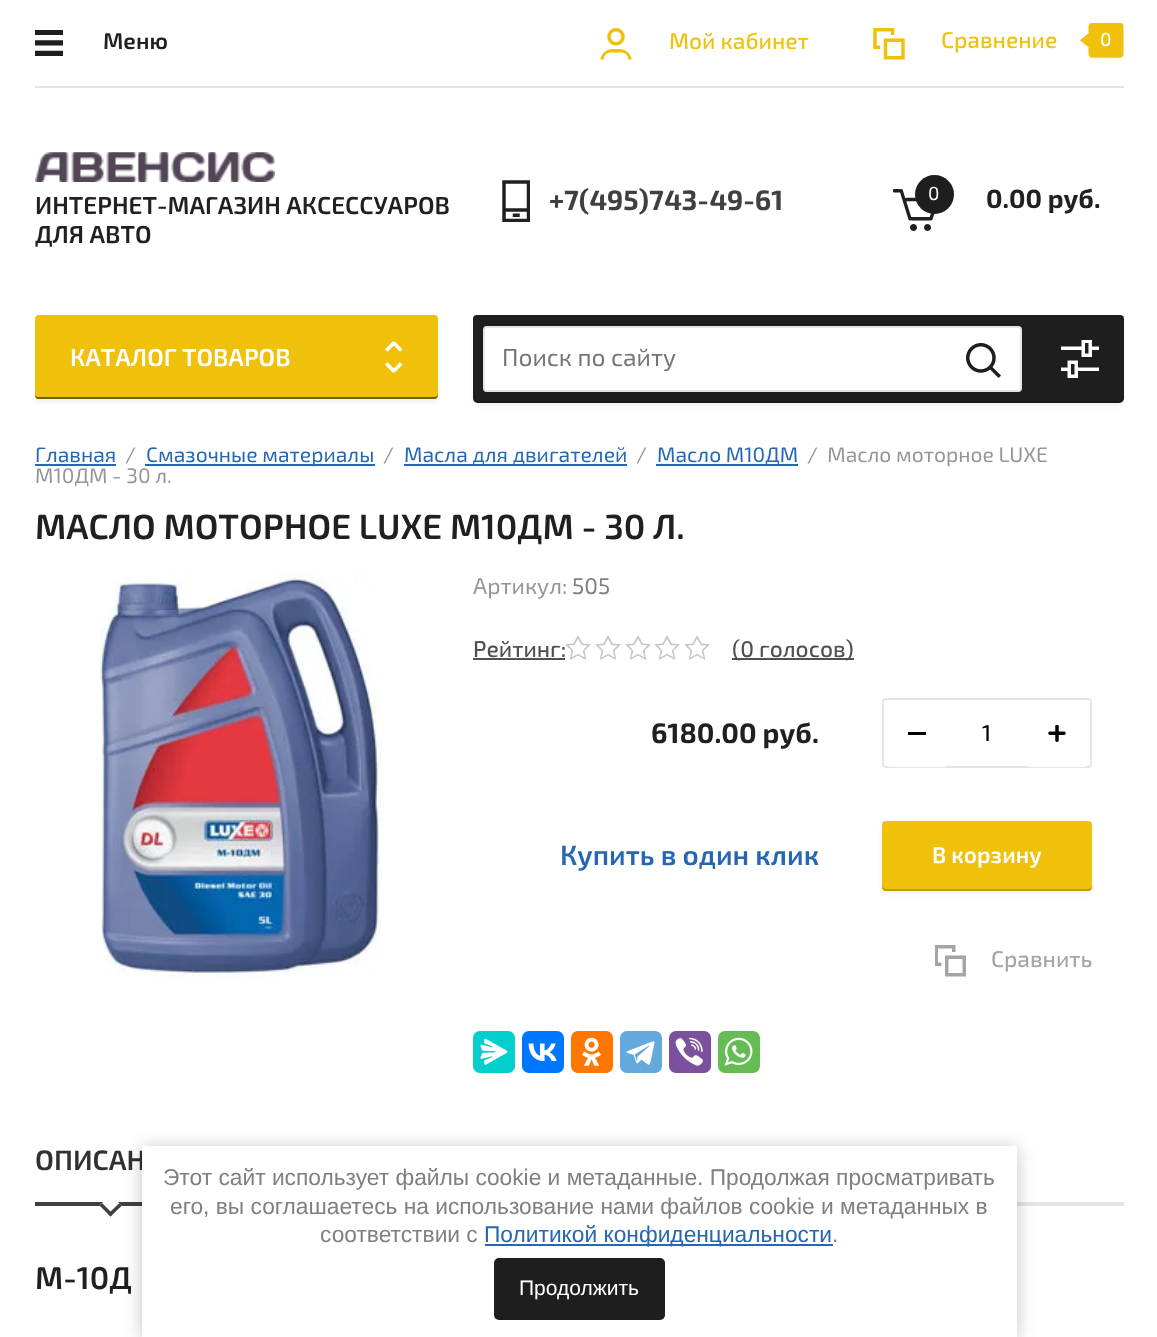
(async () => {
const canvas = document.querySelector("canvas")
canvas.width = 1157
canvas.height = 1337
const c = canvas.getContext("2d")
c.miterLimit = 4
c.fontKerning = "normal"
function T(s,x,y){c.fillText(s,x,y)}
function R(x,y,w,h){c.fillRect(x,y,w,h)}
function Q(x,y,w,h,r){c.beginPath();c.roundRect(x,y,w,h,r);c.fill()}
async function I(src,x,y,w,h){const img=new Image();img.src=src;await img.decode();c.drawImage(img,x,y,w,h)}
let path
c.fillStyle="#fff"
R(0,0,1157,1337)
c.fillStyle="#e5e5e5"
R(35,86,1089,2)
await I("1.png",35,30,28,26)
c.font="600 22.75px 'Exo 2'"
c.fillStyle="#202020"
T("Меню",103,49)
await I("2.png",600,28,32,32)
c.font="500 22.75px 'Exo 2'"
c.fillStyle="#efc10a"
T("Мой кабинет",669,49)
await I("3.png",873,28,32,32)
T("Сравнение",941,48)
await I("4.png",1080,23,44,35)
c.font="500 19px 'Exo 2'"
c.fillStyle="#fff"
T("0",1100,46)
await I("5.png",35,152,240,30)
c.font="600 24.5px 'Exo 2'"
c.fillStyle="#202020"
T("ИНТЕРНЕТ-МАГАЗИН АКСЕССУАРОВ",35,214)
T("ДЛЯ АВТО",35,243)
await I("6.png",502,180,28,42)
c.font="bold 28px 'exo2'"
c.fillStyle="#404040"
T("+7(495)743-49-61",549,210)
await I("7.png",893,189,42,42)
c.fillStyle="#1e1e1e"
c.beginPath()
c.arc(934.5,194.5,19.5,0,7)
c.fill()
c.font="19px 'exo2'"
c.fillStyle="#fff"
T("0",928,200)
c.font="bold 26.25px 'exo2'"
c.fillStyle="#202020"
T("0.00 руб.",986,208)
c.fillStyle="#0000000d"
c.filter="blur(2px)"
c.beginPath()
c.roundRect(35,319,403,84,4)
c.fill()
c.filter="none"
c.fillStyle="#efc10a"
Q(35,315,403,84,4)
await I("8.png",385,341,18,32)
c.fillStyle="#00000080"
path = new Path2D("M35 394c0 3 1 5 4 5h395c3 0 4-2 4-5c0 2-2 3-4 3h-396c-1 0-3-1-3-3z")
c.fill(path)
c.font="600 24.5px 'Exo 2'"
c.fillStyle="#fff"
T("КАТАЛОГ ТОВАРОВ",70,366)
c.fillStyle="#0000000d"
c.filter="blur(2px)"
c.beginPath()
c.roundRect(473,319,651,87,5)
c.fill()
c.filter="none"
c.fillStyle="#1e1e1e"
c.beginPath()
c.roundRect(473,315,651,88,[4,4,5,5])
c.fill()
c.fillStyle="#00000033"
path = new Path2D("M473 398c0 3 2 5 5 5h641c3 0 5-2 5-5v-2c0 2-3 5-6 5h-640c-2 0-4-1-5-3z")
c.fill(path)
c.fillStyle="#fff"
Q(483,326,539,66,4)
c.beginPath()
c.roundRect(484,327,537,64,3)
c.strokeStyle="#0000001a"
c.lineWidth=2
c.stroke()
c.font="24.5px 'exo2'"
c.fillStyle="#757575"
T("Поиск по сайту",502,366)
await I("9.png",966,343,35,35)
await I("10.png",1061,340,38,38)
c.font="21px 'exo2'"
c.fillStyle="#2567b3"
T("Главная",35,462)
R(35,464,81,2)
c.fillStyle="#959595"
T("/",125,462)
c.fillStyle="#2567b3"
R(145,464,230,2)
T("Смазочные материалы",146,462)
c.fillStyle="#959595"
T("/",383,462)
c.fillStyle="#2567b3"
R(404,464,223,2)
T("Масла для двигателей",404,462)
c.fillStyle="#959595"
T("/",636,462)
c.fillStyle="#2567b3"
R(656,464,142,2)
T("Масло М10ДМ",657,462)
c.fillStyle="#959595"
T("/  Масло моторное LUXE",807,462)
T("М10ДМ - 30 л.",35,483)
c.font="600 35px 'Exo 2'"
c.fillStyle="#202020"
T("МАСЛО МОТОРНОЕ LUXE М10ДМ - 30 Л.",35,539)
await I("11.png",100,572,283,406)
c.font="22.75px 'exo2'"
c.fillStyle="#959595"
T("Артикул:",473,594)
c.fillStyle="#808080"
T("505",572,594)
c.font="500 22.75px 'Exo 2'"
c.fillStyle="#505050"
T("Рейтинг:",473,657)
R(473,658,92,2)
await I("12.png",565,635,145,25)
R(732,658,122,2)
T("(0 голосов)",732,657)
c.font="bold 28px 'exo2'"
c.fillStyle="#202020"
T("6180.00 руб.",651,743)
c.beginPath()
c.roundRect(883,699,208,68,3)
c.strokeStyle="#e5e5e5"
c.stroke()
c.fillStyle="#fff"
Q(884,700,66,67,7)
c.fillStyle="#000"
R(908,732,18,3)
c.font="500 22.75px 'Exo 2'"
T("1",982,741)
c.fillStyle="#fff"
Q(1024,700,66,67,7)
await I("13.png",1048,725,18,17)
c.font="600 28px 'Exo 2'"
c.fillStyle="#2567b3"
T("Купить в один клик",560,865)
c.fillStyle="#0000000d"
c.filter="blur(2px)"
c.beginPath()
c.roundRect(882,824,210,70,4)
c.fill()
c.filter="none"
c.fillStyle="#efc10a"
Q(882,821,210,70,4)
c.fillStyle="#be9908"
path = new Path2D("M882 886v1c0 2 2 4 4 4h202c2 0 4-2 4-4v-1c0 1-2 3-4 3h-202c-2 0-4-2-4-3z")
c.fill(path)
c.font="600 22.75px 'Exo 2'"
c.fillStyle="#fff"
T("В корзину",932,863)
await I("14.png",935,945,31,32)
c.font="500 22.75px 'Exo 2'"
c.fillStyle="#a5a5a5"
T("Сравнить",991,967)
c.fillStyle="#03cece"
Q(473,1031,42,42,7)
await I("15.png",480,1038,28,27)
c.fillStyle="#07f"
Q(522,1031,42,42,7)
await I("16.png",528,1043,29,18)
c.fillStyle="#f70"
Q(571,1031,42,42,7)
await I("17.png",582,1037,19,29)
c.fillStyle="#64a9dc"
Q(620,1031,42,42,7)
await I("18.png",626,1041,29,24)
c.fillStyle="#7b519d"
Q(669,1031,42,42,7)
await I("19.png",675,1037,28,29)
c.fillStyle="#65bc54"
Q(718,1031,42,42,7)
await I("20.png",724,1037,29,29)
c.fillStyle="#e5e5e5"
R(1017,1202,107,4)
c.fillStyle="#404040"
R(35,1202,107,4)
c.font="600 28px 'Exo 2'"
c.fillStyle="#313131"
T("ОПИСАН",35,1170)
c.fillStyle="#fff"
path = new Path2D("M110.5 1216.5l-11-11l11-11l11.5 11z")
c.fill(path)
c.fillStyle="#404040"
path = new Path2D("M110.5 1216.5l-11-11l2.5-2.5l11 11z")
c.fill(path)
path = new Path2D("M110.5 1216.5l-2.5-2.5l11.5-11l2.5 2.5z")
c.fill(path)
c.font="600 31.5px 'Exo 2'"
c.fillStyle="#202020"
T("М-10Д",35,1289)
c.fillStyle="#0000003b"
c.filter="blur(9px)"
c.beginPath()
c.rect(142,1148,875,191)
c.fill()
c.filter="none"
c.fillStyle="#fff"
R(142,1146,875,191)
c.font="22.75px Liberation Sans"
c.fillStyle="#808080"
T("Этот сайт использует файлы cookie и метаданные. Продолжая просматривать",163,1185)
T("его, вы соглашаетесь на использование нами файлов cookie и метаданных в",170,1214)
T("соответствии с",320,1242)
c.fillStyle="#2567b3"
R(485,1244,348,2)
T("Политикой конфиденциальности",484,1242)
c.fillStyle="#808080"
T(".",832,1242)
c.fillStyle="#1e1e1e"
Q(494,1258,171,62,5)
c.font="21px Liberation Sans"
c.fillStyle="#fff"
T("Продолжить",519,1295)
})()
